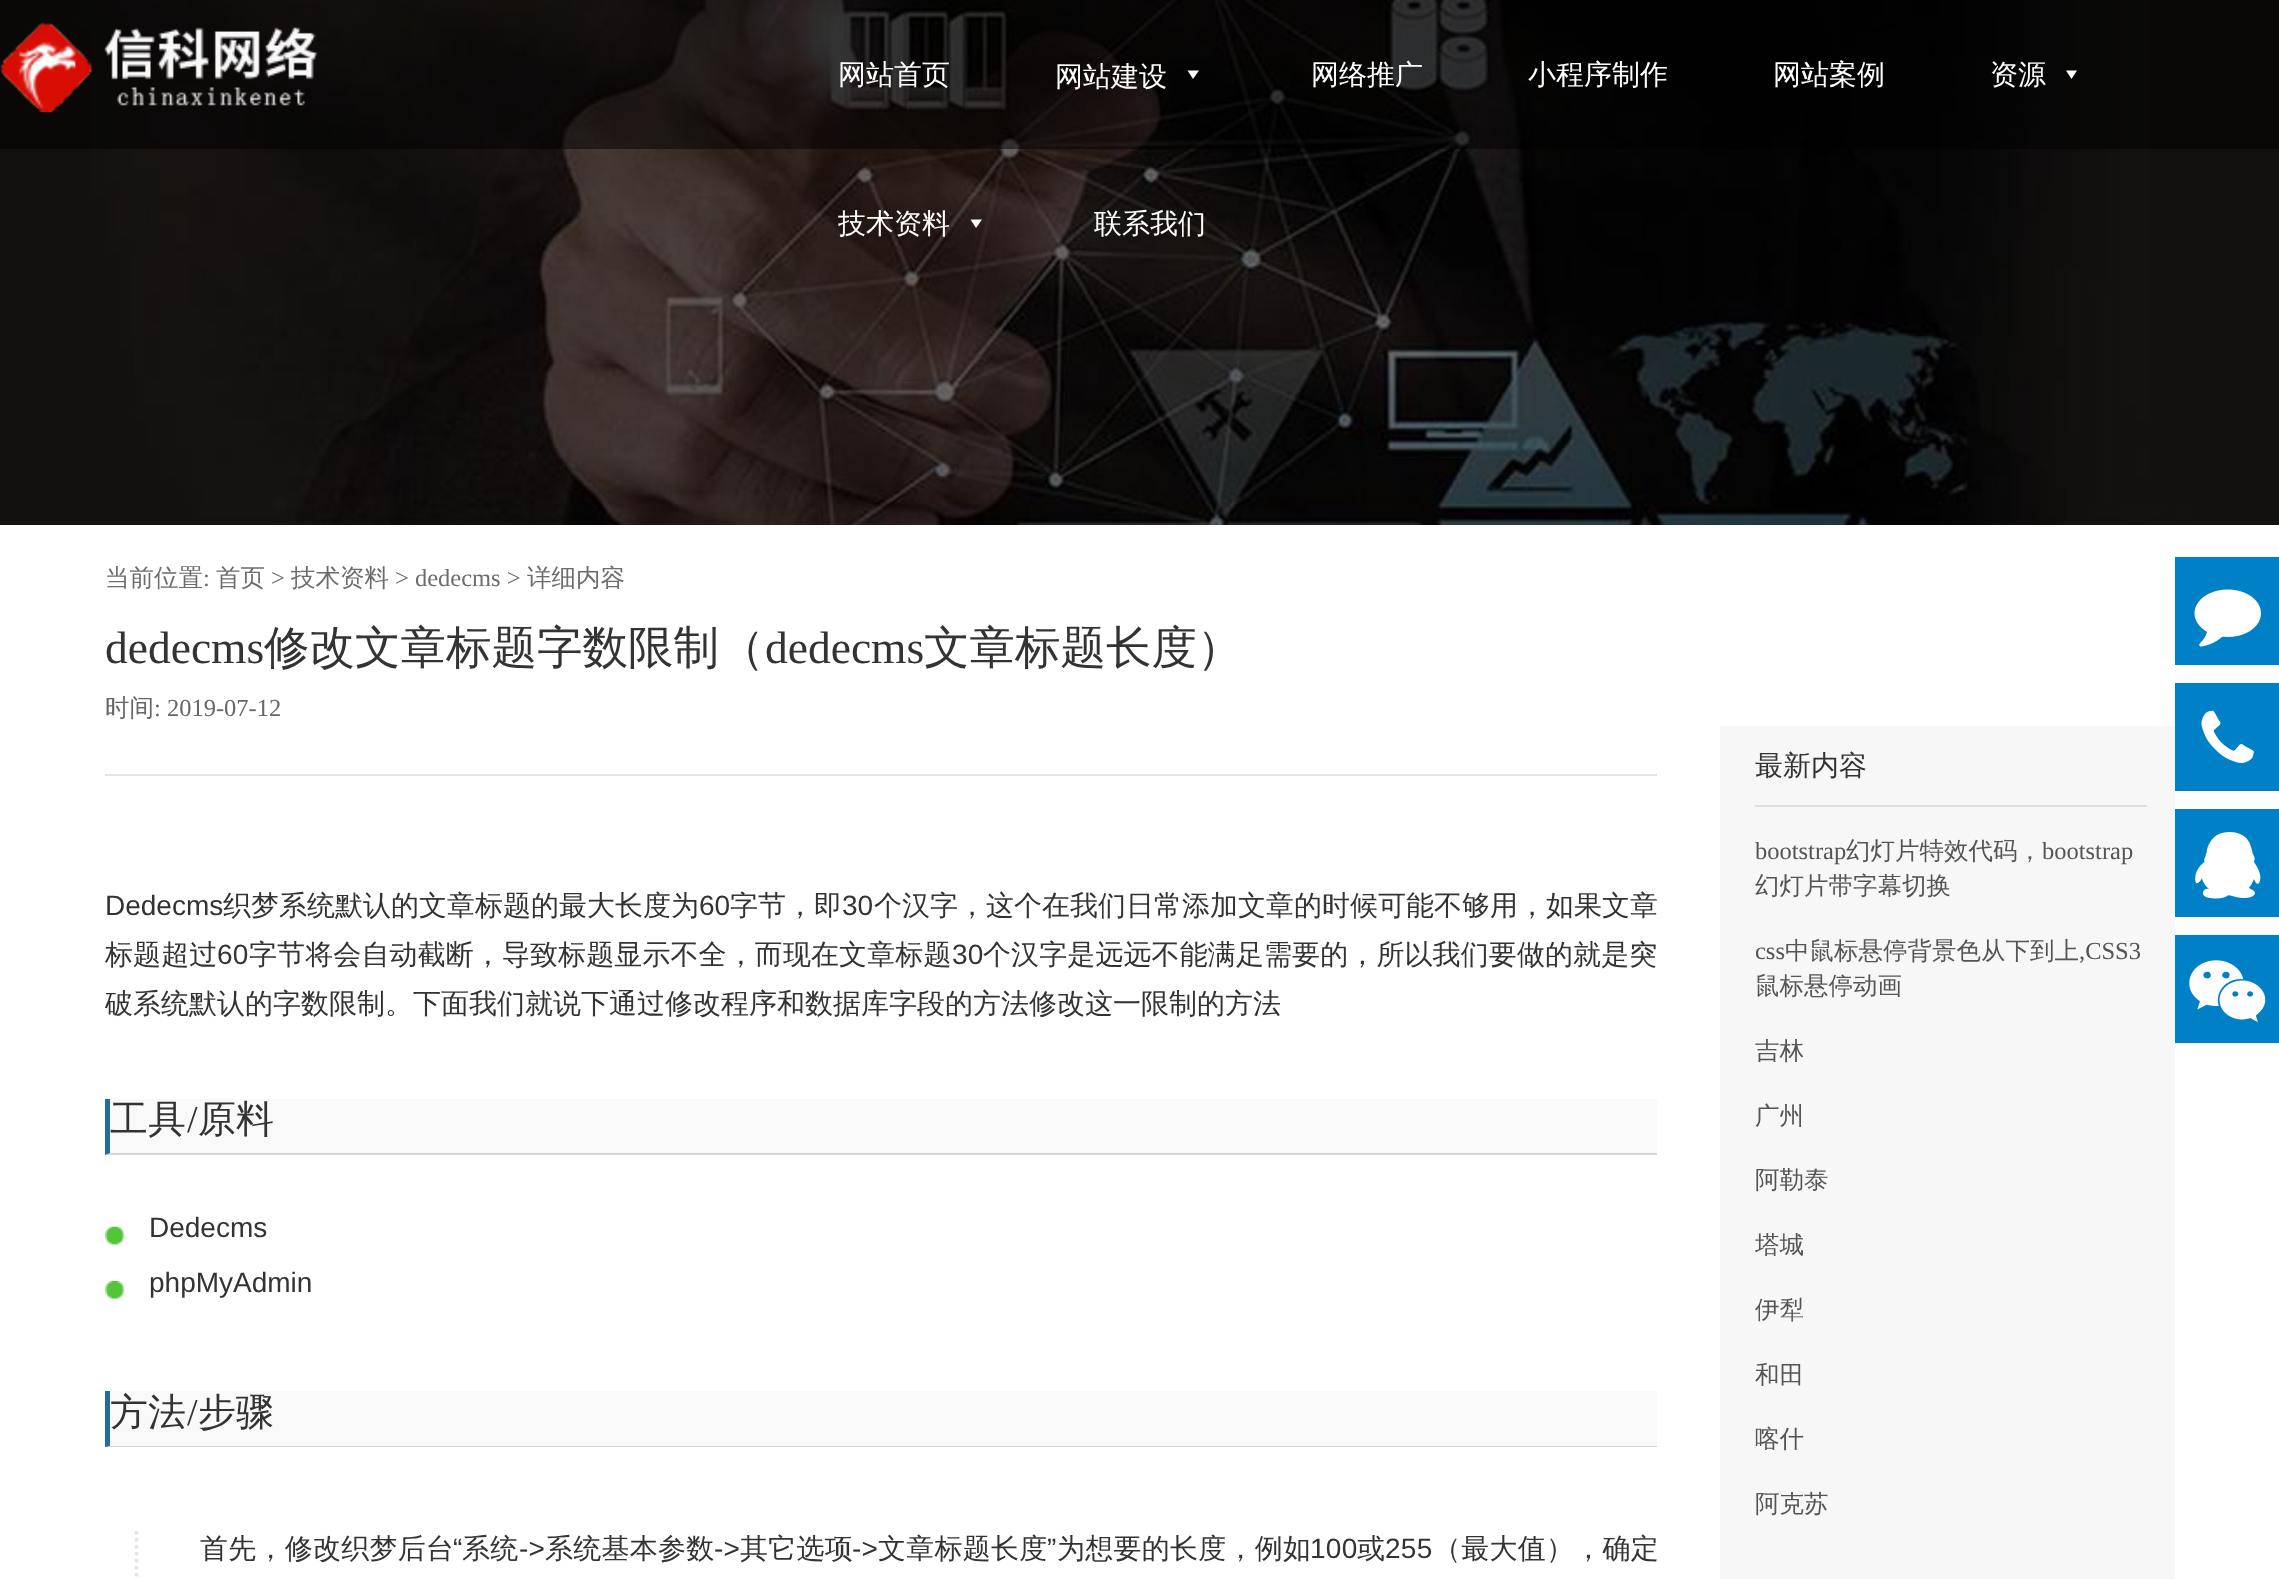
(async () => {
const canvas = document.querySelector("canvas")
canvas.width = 2279
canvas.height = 1579
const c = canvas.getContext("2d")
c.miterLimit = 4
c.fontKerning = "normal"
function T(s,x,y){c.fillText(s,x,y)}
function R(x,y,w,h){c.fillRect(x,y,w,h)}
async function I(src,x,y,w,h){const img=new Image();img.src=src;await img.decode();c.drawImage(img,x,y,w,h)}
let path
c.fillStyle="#fff"
R(0,0,2279,1579)
await I("1.png",0,0,2279,525)
c.fillStyle="#00000080"
R(0,0,2279,149)
await I("2.png",0,22,318,90)
c.font="500 28px WenQuanYi Zen Hei"
c.fillStyle="#fff"
T("网站首页",838,84)
T("网站建设",1055,86)
path = new Path2D("M1199 70.5l-6 8.5l-5.5-8.5z")
c.fill(path)
T("网络推广",1311,84)
T("小程序制作",1528,84)
T("网站案例",1773,84)
T("资源",1990,84)
path = new Path2D("M2077 70.5l-5.5 8.5l-5.5-8.5z")
c.fill(path)
T("技术资料",838,233)
path = new Path2D("M982 219.5l-6 8.5l-5.5-8.5z")
c.fill(path)
T("联系我们",1094,233)
c.font="500 24.5px WenQuanYi Zen Hei"
c.fillStyle="#6c6c6c"
T("当前位置",105,586)
c.font="24.5px Liberation Serif"
T(":",203,586)
c.font="500 24.5px WenQuanYi Zen Hei"
T("首页",216,586)
c.font="24.5px Liberation Serif"
T(">",271,586)
c.font="500 24.5px WenQuanYi Zen Hei"
T("技术资料",291,586)
c.font="24.5px Liberation Serif"
T("> dedecms >",395,586)
c.font="500 24.5px WenQuanYi Zen Hei"
T("详细内容",527,586)
c.fillStyle="#e5e5e5"
R(105,774,1552,2)
c.font="45.5px Liberation Serif"
c.fillStyle="#333"
T("dedecms",105,663)
c.font="500 45.5px WenQuanYi Zen Hei"
T("修改文章标题字数限制（",264,663)
c.font="45.5px Liberation Serif"
T("dedecms",765,663)
c.font="500 45.5px WenQuanYi Zen Hei"
T("文章标题长度）",924,663)
c.font="500 24.5px WenQuanYi Zen Hei"
c.fillStyle="#666"
T("时间",105,716)
c.font="24.5px Liberation Serif"
T(": 2019-07-12",154,716)
c.font="28px Liberation Sans"
c.fillStyle="#333"
T("Dedecms",105,915)
c.font="500 28px WenQuanYi Zen Hei"
T("织梦系统默认的文章标题的最大长度为",223,915)
c.font="28px Liberation Sans"
T("60",699,915)
c.font="500 28px WenQuanYi Zen Hei"
T("字节，即",730,915)
c.font="28px Liberation Sans"
T("30",842,915)
c.font="500 28px WenQuanYi Zen Hei"
T("个汉字，这个在我们日常添加文章的时候可能不够用，如果文章",874,915)
c.letterSpacing="0.1px"
T("标题超过",105,964)
c.font="28px Liberation Sans"
T("60",217,964)
c.font="500 28px WenQuanYi Zen Hei"
T("字节将会自动截断，导致标题显示不全，而现在文章标题",249,964)
c.font="28px Liberation Sans"
T("30",952,964)
c.font="500 28px WenQuanYi Zen Hei"
T("个汉字是远远不能满足需要的，所以我们要做的就是突",983,964)
c.letterSpacing="0px"
T("破系统默认的字数限制。下面我们就说下通过修改程序和数据库字段的方法修改这一限制的方法",105,1013)
c.fillStyle="#f9f9f9"
R(105,1099,1552,56)
c.fillStyle="#d6d6d8"
path = new Path2D("M1657 1155h-1552l5-2h1547z")
c.fill(path)
c.fillStyle="#236d9a"
path = new Path2D("M105 1155v-56h5v54z")
c.fill(path)
c.font="500 38px WenQuanYi Zen Hei"
c.fillStyle="#333"
T("工具",110,1132)
c.font="38px Liberation Serif"
T("/",187,1132)
c.font="500 38px WenQuanYi Zen Hei"
T("原料",198,1132)
await I("3.png",105,1226,20,19)
c.font="28px Liberation Sans"
T("Dedecms",149,1237)
await I("4.png",105,1281,20,18)
T("phpMyAdmin",149,1292)
c.fillStyle="#f9f9f9"
R(105,1391,1552,56)
c.fillStyle="#d6d6d8"
path = new Path2D("M1657 1447h-1552l5-1h1547z")
c.fill(path)
c.fillStyle="#236d9a"
path = new Path2D("M105 1447v-56h5v55z")
c.fill(path)
c.font="500 38px WenQuanYi Zen Hei"
c.fillStyle="#333"
T("方法",110,1425)
c.font="38px Liberation Serif"
T("/",187,1425)
c.font="500 38px WenQuanYi Zen Hei"
T("步骤",198,1425)
path = new Path2D("M136.5 1531v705.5")
c.strokeStyle="#e4e4e4"
c.lineWidth=3.5
c.setLineDash([3.5,3.5])
c.stroke(path)
c.letterSpacing="0.25px"
c.font="500 28px WenQuanYi Zen Hei"
T("首先，修改织梦后台",200,1558)
c.font="28px Liberation Sans"
T("“",453,1558)
c.font="500 28px WenQuanYi Zen Hei"
T("系统",462,1558)
c.font="28px Liberation Sans"
T("->",519,1558)
c.font="500 28px WenQuanYi Zen Hei"
T("系统基本参数",545,1558)
c.font="28px Liberation Sans"
T("->",714,1558)
c.font="500 28px WenQuanYi Zen Hei"
T("其它选项",740,1558)
c.font="28px Liberation Sans"
T("->",852,1558)
c.font="500 28px WenQuanYi Zen Hei"
T("文章标题长度",878,1558)
c.font="28px Liberation Sans"
T("”",1047,1558)
c.font="500 28px WenQuanYi Zen Hei"
T("为想要的长度，例如",1057,1558)
c.font="28px Liberation Sans"
T("100",1310,1558)
c.font="500 28px WenQuanYi Zen Hei"
T("或",1357,1558)
c.font="28px Liberation Sans"
T("255",1385,1558)
c.font="500 28px WenQuanYi Zen Hei"
T("（最大值），确定",1433,1558)
c.fillStyle="#f7f7f8"
R(1720,726,455,853)
c.fillStyle="#dededf"
R(1755,805,392,2)
c.letterSpacing="0px"
c.fillStyle="#333"
T("最新内容",1755,775)
c.font="24.5px Liberation Serif"
c.fillStyle="#555"
T("bootstrap",1755,859)
c.font="500 24.5px WenQuanYi Zen Hei"
T("幻灯片特效代码，",1846,859)
c.font="24.5px Liberation Serif"
T("bootstrap",2042,859)
c.font="500 24.5px WenQuanYi Zen Hei"
T("幻灯片带字幕切换",1755,894)
c.font="24.5px Liberation Serif"
T("css",1755,959)
c.font="500 24.5px WenQuanYi Zen Hei"
T("中鼠标悬停背景色从下到上",1785,959)
c.font="24.5px Liberation Serif"
T(",CSS3",2079,959)
c.font="500 24.5px WenQuanYi Zen Hei"
T("鼠标悬停动画",1755,994)
T("吉林",1755,1059)
T("广州",1755,1124)
T("阿勒泰",1755,1188)
T("塔城",1755,1253)
T("伊犁",1755,1318)
T("和田",1755,1383)
T("喀什",1755,1447)
T("阿克苏",1755,1512)
c.fillStyle="#0080c7"
R(2175,557,104,108)
await I("5.png",2194,589,67,58)
R(2175,683,104,108)
await I("6.png",2201,710,53,53)
R(2175,809,104,108)
await I("7.png",2195,832,66,67)
R(2175,935,104,108)
await I("8.png",2189,960,77,63)
})()
